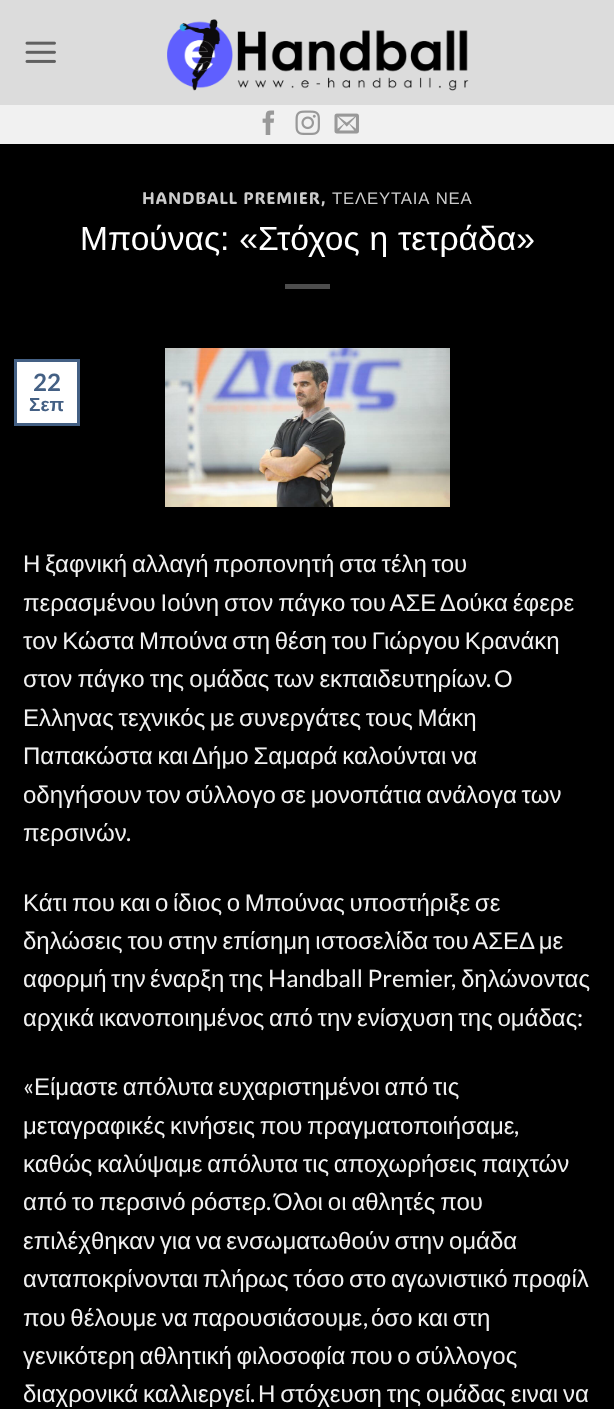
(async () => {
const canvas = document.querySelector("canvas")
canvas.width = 614
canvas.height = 1409
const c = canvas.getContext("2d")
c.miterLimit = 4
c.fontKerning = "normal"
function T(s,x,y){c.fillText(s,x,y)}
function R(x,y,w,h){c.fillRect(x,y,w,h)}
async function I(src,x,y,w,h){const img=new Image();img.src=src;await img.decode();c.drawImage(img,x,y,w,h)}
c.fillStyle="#000"
R(0,0,614,1409)
c.fillStyle="#dcdcdc"
R(0,0,614,105)
await I("1.png",25,41,31,22)
await I("2.png",167,19,302,72)
c.fillStyle="#f1f1f1"
R(0,105,614,39)
await I("3.png",262,110,13,25)
await I("4.png",295,110,25,25)
await I("5.png",334,113,25,21)
c.letterSpacing="0.8px"
c.font="16.75px ADLaM Display"
c.fillStyle="#ccc"
T("HANDBALL PREMIER,",142,204)
c.wordSpacing="1px"
c.font="16.75px Liberation Sans"
T("ΤΕΛΕΥΤΑΙΑ ΝΕΑ",332,204)
c.letterSpacing="0px"
c.wordSpacing="0.5px"
c.font="33.6px Liberation Sans"
c.fillStyle="#fff"
T("Μπούνας: «Στόχος η τετράδα»",80,250)
c.fillStyle="#4d4d4d"
R(285,284,45,5)
c.fillStyle="#fff"
c.beginPath()
c.rect(15.5,360.5,63,64)
c.fill()
c.strokeStyle="#446084"
c.lineWidth=3
c.stroke()
c.wordSpacing="0px"
c.font="bold 24px Lato"
c.fillStyle="#446084"
T("22",33,391)
c.font="bold 19px Liberation Sans"
T("Σεπ",29,411)
await I("6.png",165,348,285,159)
c.wordSpacing="-2px"
c.font="24px Liberation Sans"
c.fillStyle="#f1f1f1"
T("Η ξαφνική αλλαγή προπονητή στα τέλη του",23,572)
c.wordSpacing="-1.75px"
T("περασμένου Ιούνη στον πάγκο του ΑΣΕ Δούκα έφερε",23,611)
c.wordSpacing="-2px"
T("τον Κώστα Μπούνα στη θέση του Γιώργου Κρανάκη",23,649)
c.wordSpacing="-1.5px"
T("στον πάγκο της ομάδας των εκπαιδευτηρίων",23,687)
c.wordSpacing="0px"
c.font="24px Lato"
T(".",486,687)
c.font="24px Liberation Sans"
T("Ο",494,687)
c.wordSpacing="-2px"
T("Ελληνας τεχνικός με συνεργάτες τους Μάκη",23,726)
c.wordSpacing="-1.75px"
T("Παπακώστα και Δήμο Σαμαρά καλούνται να",23,764)
c.wordSpacing="-2px"
T("οδηγήσουν τον σύλλογο σε μονοπάτια ανάλογα των",23,803)
c.wordSpacing="0px"
T("περσινών",23,841)
c.font="24px Lato"
T(".",126,841)
c.wordSpacing="-2px"
c.font="24px Liberation Sans"
T("Κάτι που και ο ίδιος ο Μπούνας υποστήριξε σε",23,911)
c.wordSpacing="-1.75px"
T("δηλώσεις του στην επίσημη ιστοσελίδα του ΑΣΕΔ με",23,949)
c.wordSpacing="0px"
T("αφορμή",23,987)
T("την",111,987)
T("έναρξη",150,987)
T("της",229,987)
c.font="24px Lato"
T("Handball Premier,",268,987)
c.font="24px Liberation Sans"
T("δηλώνοντας",461,987)
c.wordSpacing="-2px"
T("αρχικά ικανοποιημένος από την ενίσχυση της ομάδας",23,1026)
c.wordSpacing="0px"
c.font="24px Lato"
T(":",577,1026)
T("«",23,1095)
c.wordSpacing="-2px"
c.font="24px Liberation Sans"
T("Είμαστε απόλυτα ευχαριστημένοι από τις",34,1095)
T("μεταγραφικές κινήσεις που πραγματοποιήσαμε",23,1134)
c.wordSpacing="0px"
c.font="24px Lato"
T(",",514,1134)
c.wordSpacing="-2px"
c.font="24px Liberation Sans"
T("καθώς καλύψαμε απόλυτα τις αποχωρήσεις παιχτών",23,1172)
c.wordSpacing="-1.75px"
T("από το περσινό ρόστερ",23,1210)
c.wordSpacing="0px"
c.font="24px Lato"
T(".",266,1210)
c.wordSpacing="-1.75px"
c.font="24px Liberation Sans"
T("Όλοι οι αθλητές που",274,1210)
c.wordSpacing="-2px"
T("επιλέχθηκαν για να ενσωματωθούν στην ομάδα",23,1249)
T("ανταποκρίνονται πλήρως τόσο στο αγωνιστικό προφίλ",23,1287)
T("που θέλουμε να παρουσιάσουμε",23,1326)
c.wordSpacing="0px"
c.font="24px Lato"
T(",",363,1326)
c.wordSpacing="-2px"
c.font="24px Liberation Sans"
T("όσο και στη",371,1326)
T("γενικότερη αθλητική φιλοσοφία που ο σύλλογος",23,1364)
c.wordSpacing="-1.75px"
T("διαχρονικά καλλιεργεί",23,1402)
c.wordSpacing="0px"
c.font="24px Lato"
T(".",250,1402)
c.wordSpacing="-1.75px"
c.font="24px Liberation Sans"
T("Η στόχευση της ομάδας ειναι να",258,1402)
})()
